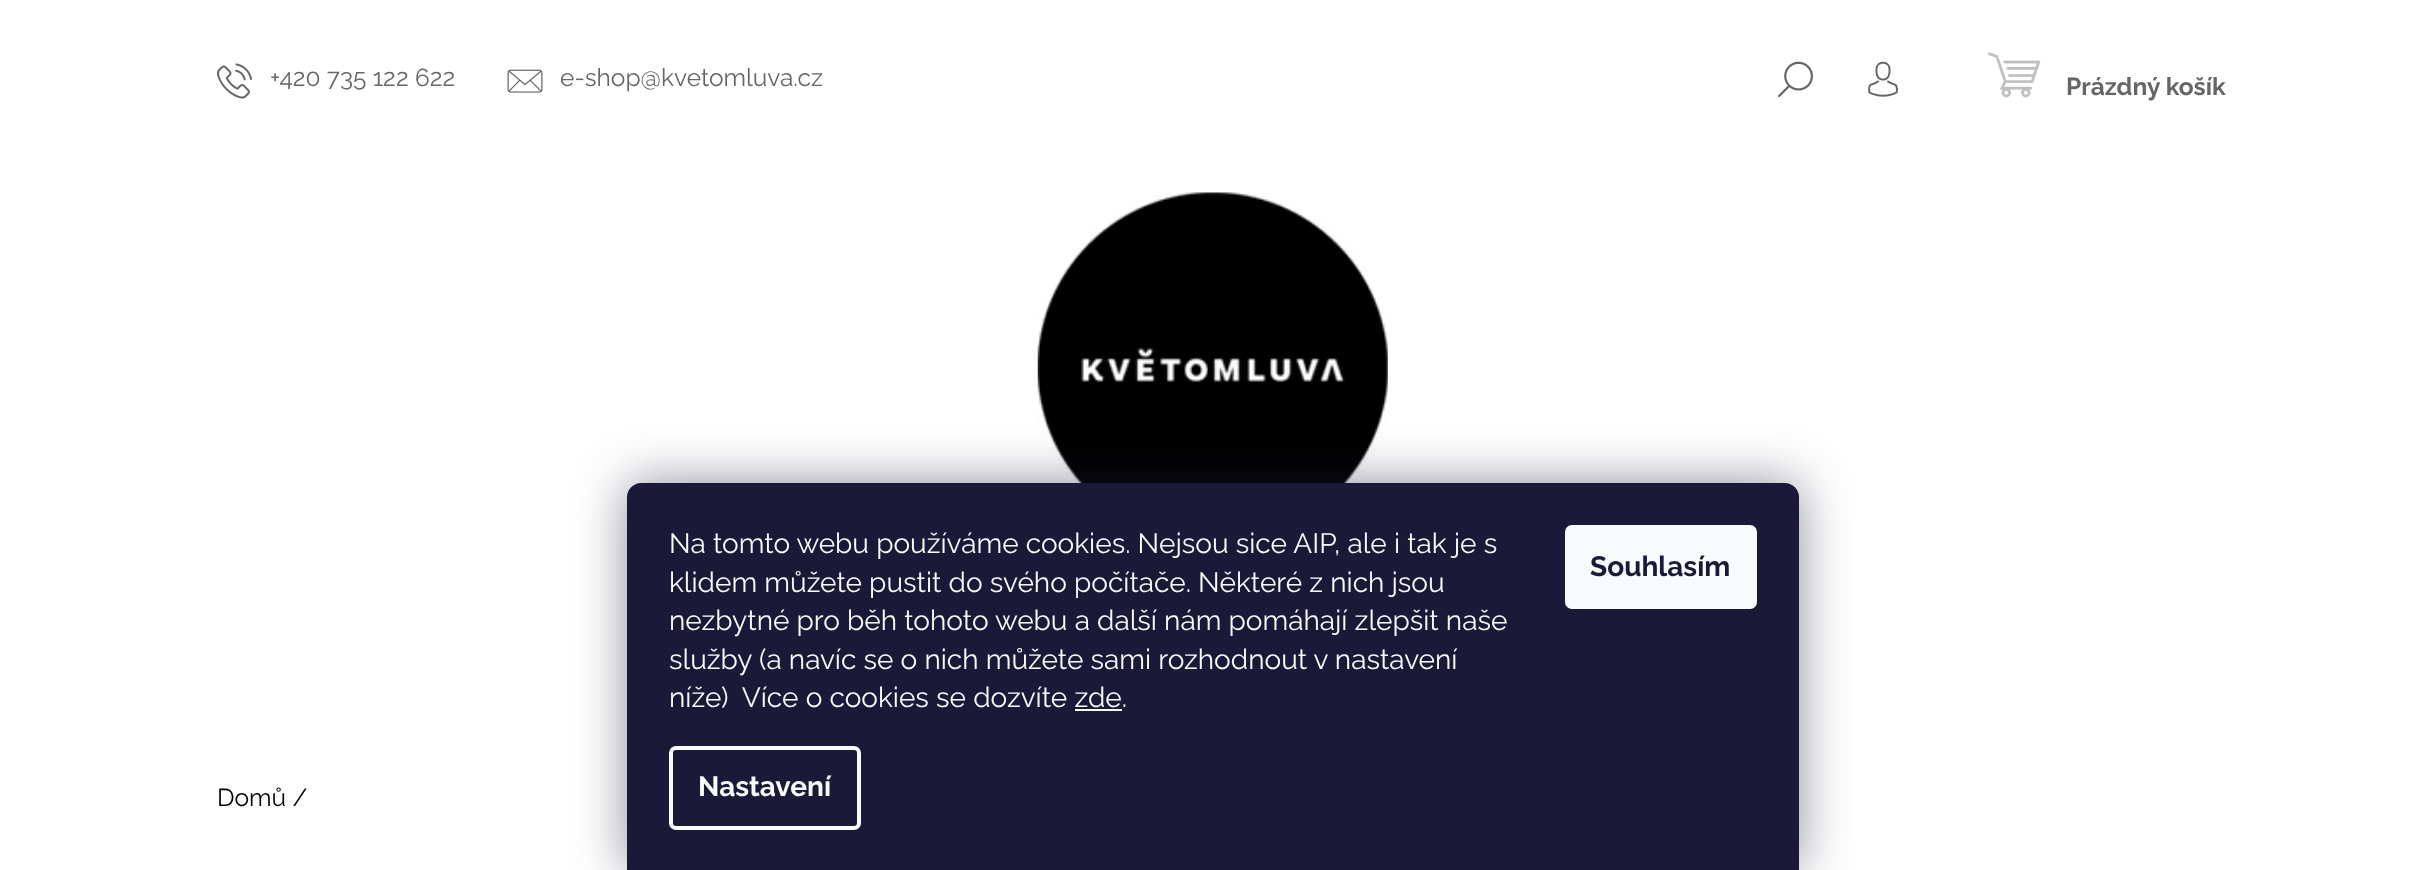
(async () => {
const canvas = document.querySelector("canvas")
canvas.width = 2425
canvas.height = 870
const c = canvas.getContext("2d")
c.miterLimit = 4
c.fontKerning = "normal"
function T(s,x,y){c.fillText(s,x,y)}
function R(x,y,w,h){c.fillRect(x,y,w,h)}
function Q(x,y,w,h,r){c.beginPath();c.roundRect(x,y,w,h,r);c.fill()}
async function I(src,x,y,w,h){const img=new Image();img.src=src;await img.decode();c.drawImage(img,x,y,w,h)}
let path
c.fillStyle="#fff"
R(0,0,2425,870)
await I("1.png",217,63,35,36)
c.font="24.5px Raleway"
c.fillStyle="#666"
T("+420 735 122 622",270,86)
await I("2.png",507,69,36,24)
T("e-shop@kvetomluva.cz",560,86)
await I("3.png",1778,61,35,37)
await I("4.png",1868,61,30,36)
await I("5.png",1988,52,53,46)
c.font="bold 24.5px Raleway"
T("Prázdný košík",2066,95)
await I("6.png",1037,192,351,291)
c.font="24.5px Raleway"
c.fillStyle="#000"
T("Domů /",217,806)
c.fillStyle="#1b193980"
c.filter="blur(26px)"
c.beginPath()
c.roundRect(627,483,1172,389,14)
c.fill()
c.filter="none"
c.fillStyle="#1a1937"
path = new Path2D("M641 483h1144c7.5 0 14 6.5 14 14v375h-1172v-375c0-7.5 6.5-14 14-14z")
c.fill(path)
c.font="28px Raleway"
c.fillStyle="#f8fafb"
T("Na tomto webu používáme cookies. Nejsou sice AIP, ale i tak je s",669,553)
T("klidem můžete pustit do svého počítače. Některé z nich jsou",669,592)
T("nezbytné pro běh tohoto webu a další nám pomáhají zlepšit naše",669,630)
T("služby (a navíc se o nich můžete sami rozhodnout v nastavení",669,669)
T("níže)  Více o cookies se dozvíte zde.",669,707)
R(1075,709,47,2)
c.beginPath()
c.roundRect(671,748,188,80,5)
c.strokeStyle="#f8fafb"
c.lineWidth=4
c.stroke()
c.font="bold 28px Raleway"
T("Nastavení",698,796)
Q(1565,525,192,84,7)
c.fillStyle="#1a1937"
T("Souhlasím",1590,576)
})()
